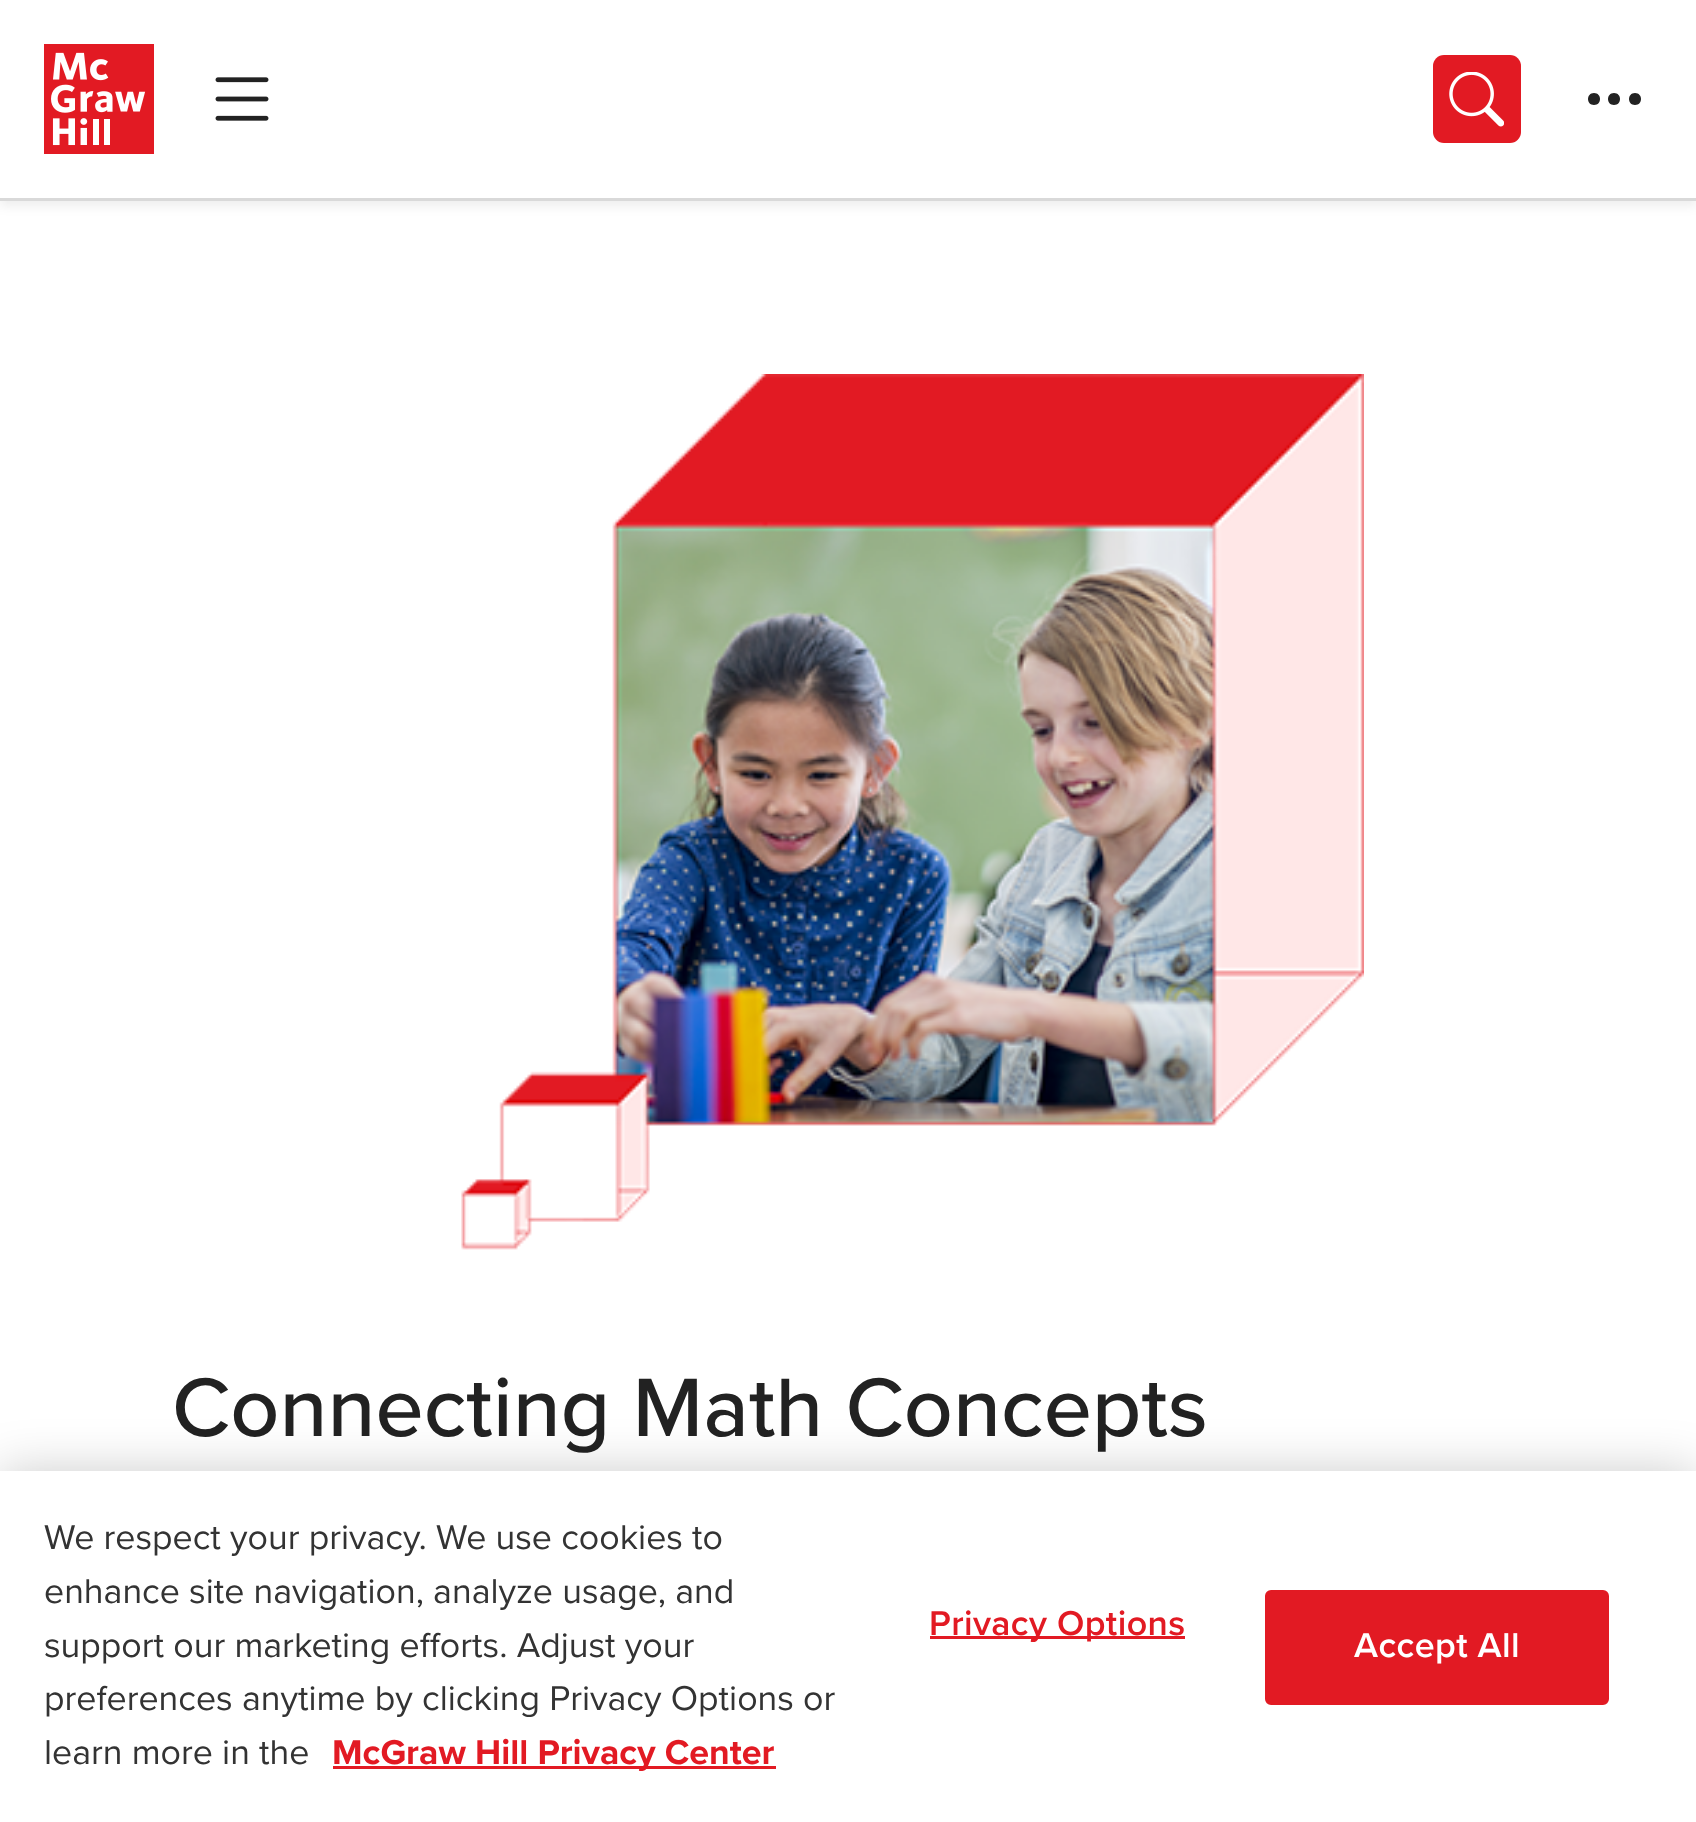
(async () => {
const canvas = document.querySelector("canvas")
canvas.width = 1696
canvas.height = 1822
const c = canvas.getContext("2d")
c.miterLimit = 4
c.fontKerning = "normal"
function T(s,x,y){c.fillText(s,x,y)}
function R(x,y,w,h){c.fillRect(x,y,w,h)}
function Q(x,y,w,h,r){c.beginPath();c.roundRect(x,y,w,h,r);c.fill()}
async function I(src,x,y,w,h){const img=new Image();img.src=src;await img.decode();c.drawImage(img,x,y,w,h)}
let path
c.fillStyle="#fff"
R(0,0,1696,1822)
c.fillStyle="#00000012"
c.filter="blur(5.5px)"
c.beginPath()
c.rect(0,6,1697,200)
c.fill()
c.filter="none"
c.fillStyle="#fff"
R(0,0,1696,198)
c.fillStyle="#d9d9d9"
R(0,198,1696,3)
await I("1.png",44,44,110,110)
await I("2.png",215,77,54,44)
c.fillStyle="#e21a23"
Q(1433,55,88,88,11)
await I("3.png",1449,72,55,55)
c.fillStyle="#222"
path = new Path2D("M1594 105c-8 0-8-12 0-12c8 0 8 12 0 12m20 0c-8 0-8-12 0-12c8 0 8 12 0 12m21 0c-8 0-8-12 0-12c8 0 8 12 0 12")
c.fill(path)
await I("4.png",461,374,903,876)
c.font="500 86px Proxima Nova"
T("Connecting Math Concepts",172,1436)
c.fillStyle="#00000033"
c.filter="blur(25px)"
c.beginPath()
c.rect(0,1471,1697,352)
c.fill()
c.filter="none"
c.fillStyle="#fff"
R(0,1471,1696,351)
c.font="35.75px Proxima Nova"
c.fillStyle="#333"
T("We respect your privacy. We use cookies to",44,1549)
T("enhance site navigation, analyze usage, and",44,1603)
T("support our marketing efforts. Adjust your",44,1657)
T("preferences anytime by clicking Privacy Options or",44,1710)
T("learn more in the",44,1764)
c.fillStyle="#e21a23"
R(333,1766,443,3)
c.font="bold 35.75px Proxima Nova"
T("McGraw Hill Privacy Center",332,1764)
R(930,1636,255,3)
c.letterSpacing="0.4px"
c.font="600 35.75px Proxima Nova"
T("Privacy Options",929,1635)
c.beginPath()
c.roundRect(1266.5,1591.5,341,112,4.5)
c.fill()
c.strokeStyle="#e21a23"
c.lineWidth=3
c.stroke()
c.fillStyle="#fff"
T("Accept All",1354,1657)
})()
